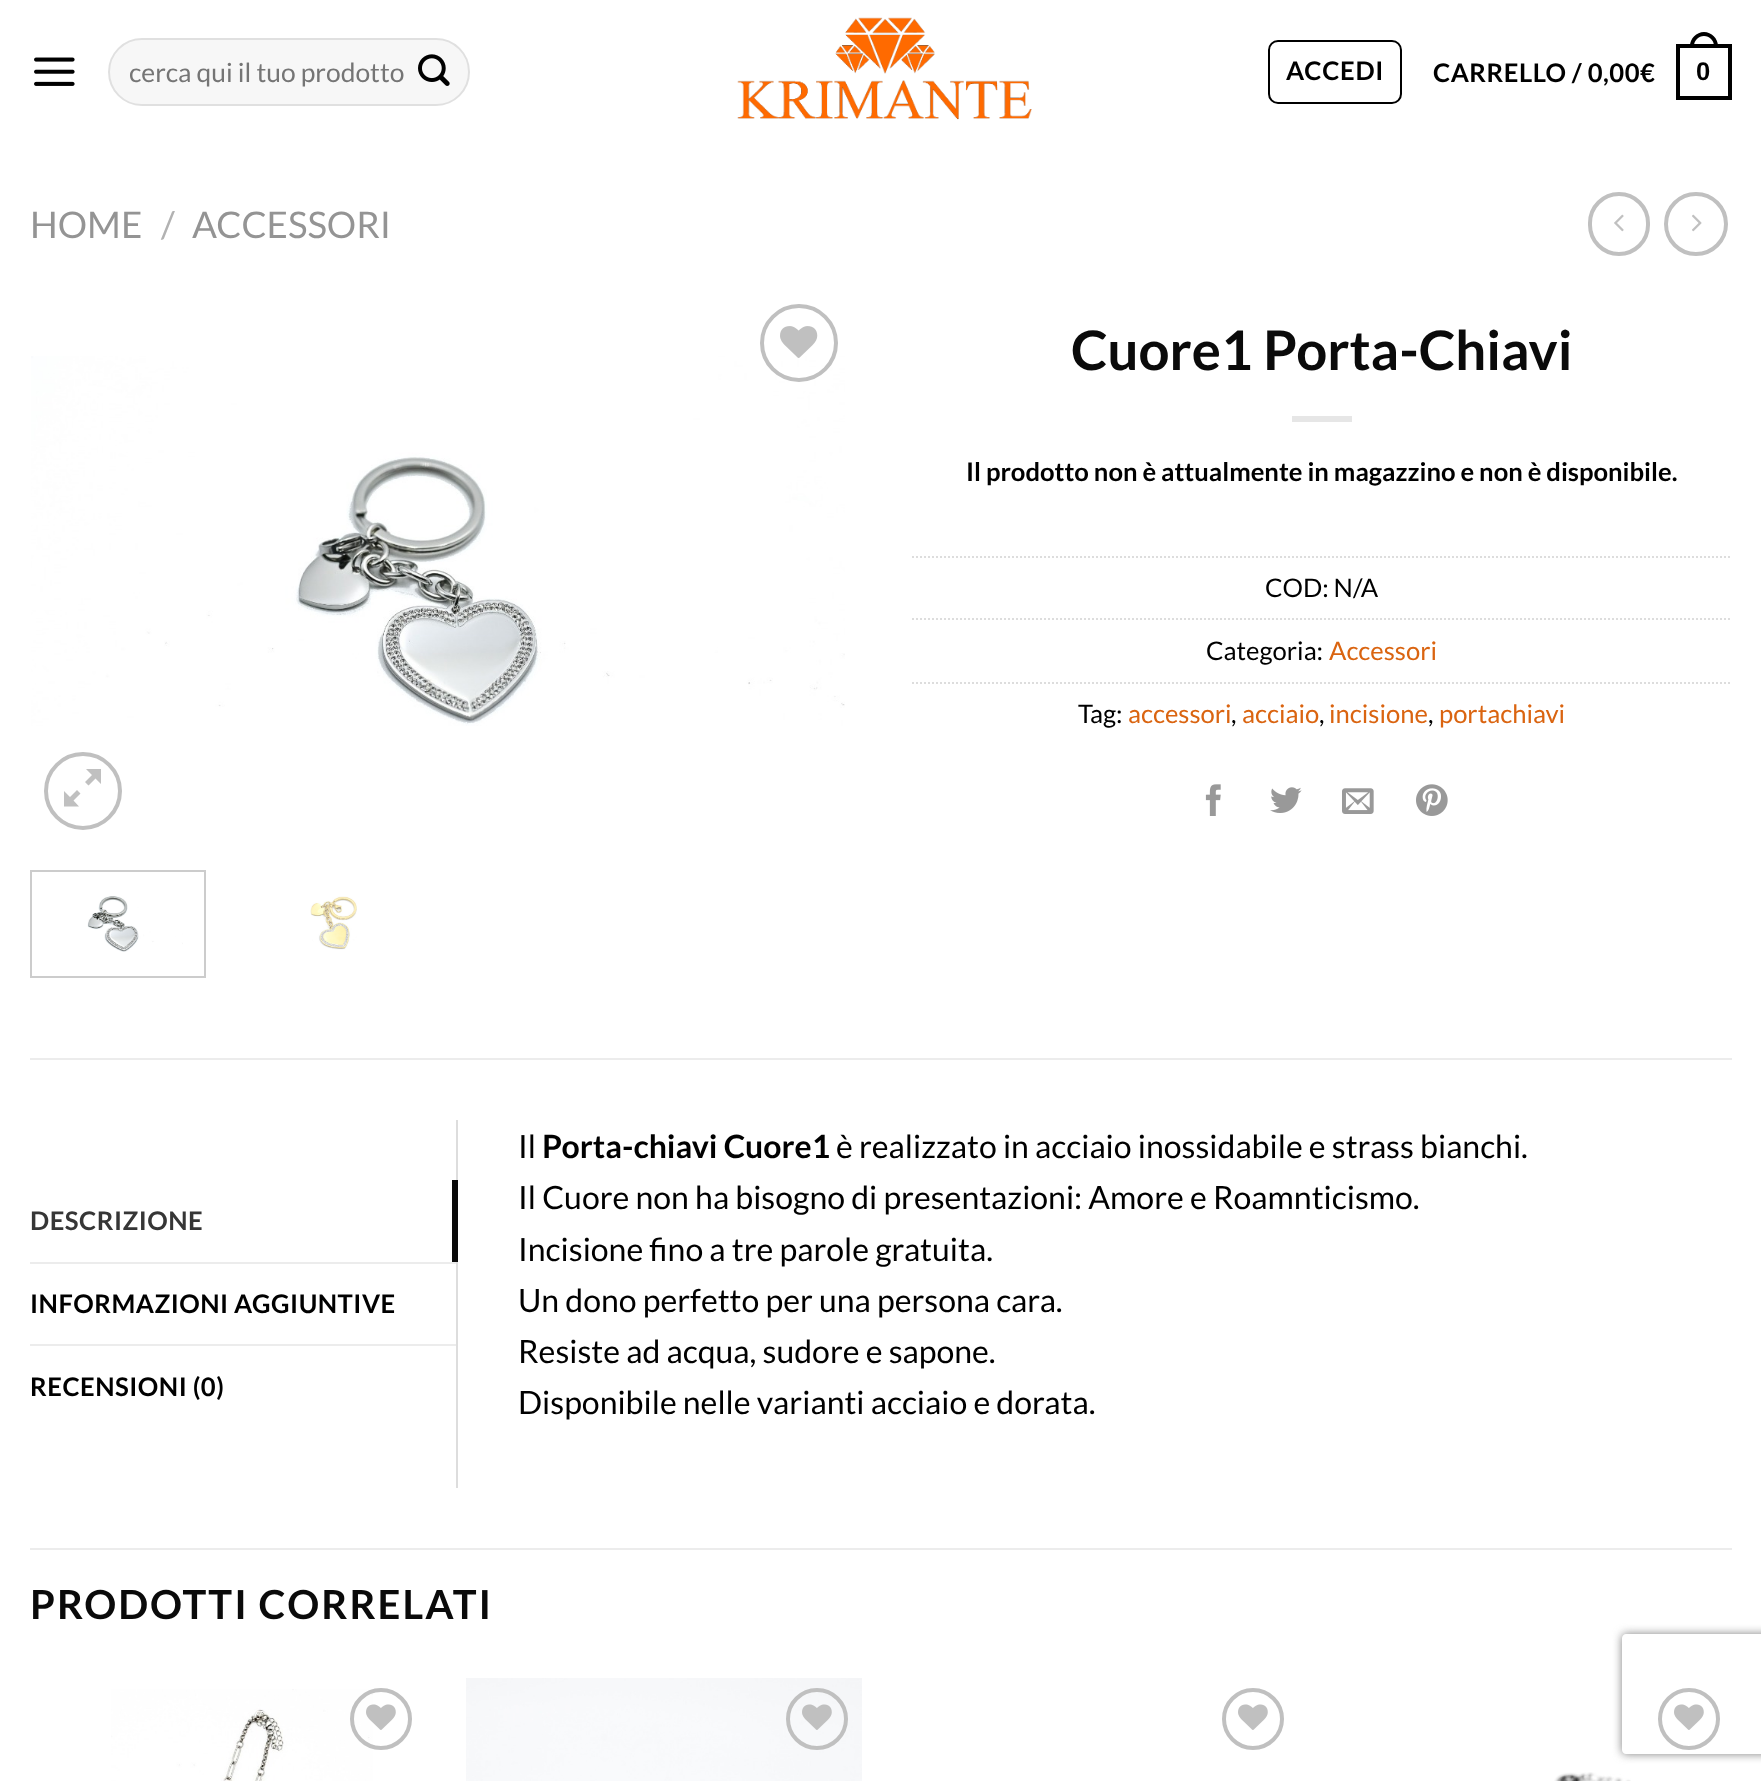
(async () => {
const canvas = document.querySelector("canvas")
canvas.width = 1761
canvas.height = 1781
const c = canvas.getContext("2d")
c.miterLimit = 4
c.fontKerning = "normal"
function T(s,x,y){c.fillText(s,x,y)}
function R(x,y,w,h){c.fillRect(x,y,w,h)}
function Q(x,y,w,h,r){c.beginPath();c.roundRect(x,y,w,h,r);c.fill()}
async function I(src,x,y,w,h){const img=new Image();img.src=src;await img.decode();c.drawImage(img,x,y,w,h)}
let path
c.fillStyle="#fff"
R(0,0,1761,1781)
await I("1.png",34,57,41,29)
c.fillStyle="#f7f7f7"
Q(108,38,362,68,34)
c.beginPath()
c.roundRect(109,39,360,66,33)
c.strokeStyle="#00000017"
c.lineWidth=2
c.stroke()
c.font="26.4px Lato"
c.fillStyle="#757575"
T("cerca qui il tuo prodotto",129,82)
await I("2.png",418,54,32,32)
await I("3.png",737,17,295,103)
c.beginPath()
c.roundRect(1269,41,132,62,9)
c.strokeStyle="#000"
c.stroke()
c.letterSpacing="0.75px"
c.font="bold 25.6px Lato"
c.fillStyle="#000"
T("ACCEDI",1286,80)
c.letterSpacing="0.5px"
T("CARRELLO / 0,00€",1433,82)
c.lineWidth=4
c.strokeRect(1678,46,52,52)
path = new Path2D("M1704 32c7.5 0 14 6.5 14 14v2h-28v-2c0-7.5 6.5-14 14-14zm0 4c5.5 0 10 4.5 10 10v2h-20v-2c0-5.5 4.5-10 10-10z")
c.fill(path,"evenodd")
c.font="bold 25.6px Liberation Sans"
T("0",1696,80)
c.letterSpacing="0px"
c.font="36.75px Lato"
c.fillStyle="#949494"
T("HOME",30,238)
c.fillStyle="#b2b2b2"
T("/",161,238)
c.fillStyle="#949494"
T("ACCESSORI",192,238)
c.beginPath()
c.roundRect(1590,194,58,60,29)
c.strokeStyle="#c0c0c0"
c.stroke()
await I("4.png",1614,214,10,18)
c.beginPath()
c.arc(1696,224,30,0,7)
c.stroke()
await I("5.png",1692,214,10,18)
await I("7.png",31,356,814,370)
c.beginPath()
c.arc(799,343,37,0,7)
c.stroke()
await I("6.png",780,326,38,32)
c.beginPath()
c.arc(83,791,37,0,7)
c.stroke()
c.fillStyle="#c0c0c0"
path = new Path2D("M101 769v15l-5.5-5.5l-7 7l-3.5-3.5l7-7l-6-6zm-20.5 24.5l-7 7l5.5 6h-15v-15.5l6 6l7-7z")
c.fill(path)
c.strokeStyle="#ccc"
c.lineWidth=2
c.strokeRect(31,871,174,106)
await I("8.png",87,896,96,56)
await I("9.png",310,896,47,54)
c.font="bold 54.5px Lato"
c.fillStyle="#0a0a0a"
T("Cuore1 Porta-Chiavi",1071,370)
c.fillStyle="#e6e6e6"
R(1292,416,60,6)
c.font="bold 25.6px Lato"
c.fillStyle="#000"
T("Il prodotto non è attualmente in magazzino e non è disponibile.",966,481)
path = new Path2D("M912 557h820")
c.strokeStyle="#ddd"
c.setLineDash([2,2])
c.stroke(path)
c.font="25.6px Lato"
T("COD: N/A",1265,597)
path = new Path2D("M912 619h820")
c.stroke(path)
T("Categoria:",1206,660)
c.fillStyle="#da6410"
T("Accessori",1329,660)
path = new Path2D("M912 683h820")
c.stroke(path)
c.fillStyle="#000"
T("Tag:",1078,723)
c.fillStyle="#da6410"
T("accessori",1128,723)
c.fillStyle="#000"
T(",",1231,723)
c.fillStyle="#da6410"
T("acciaio",1242,723)
c.fillStyle="#000"
T(",",1319,723)
c.fillStyle="#da6410"
T("incisione",1329,723)
c.fillStyle="#000"
T(",",1428,723)
c.fillStyle="#da6410"
T("portachiavi",1439,723)
await I("10.png",1205,784,16,32)
await I("11.png",1270,787,32,26)
await I("12.png",1342,788,32,26)
await I("13.png",1416,784,32,32)
c.fillStyle="#ececec"
R(30,1058,1702,2)
c.letterSpacing="0.5px"
c.font="bold 25.6px Lato"
c.fillStyle="#363636"
T("DESCRIZIONE",30,1230)
c.fillStyle="#ddd"
R(456,1120,2,368)
c.fillStyle="#0a0a0a"
R(452,1180,6,82)
c.fillStyle="#ececec"
R(30,1262,426,2)
c.fillStyle="#000"
T("INFORMAZIONI AGGIUNTIVE",30,1313)
c.fillStyle="#ececec"
R(30,1344,426,2)
c.fillStyle="#000"
T("RECENSIONI (0)",30,1396)
c.letterSpacing="0px"
c.font="32px Lato"
T("Il",518,1158)
c.font="bold 32px Lato"
T("Porta-chiavi Cuore1",542,1158)
c.font="32px Lato"
T("è realizzato in acciaio inossidabile e strass bianchi.",836,1158)
T("Il Cuore non ha bisogno di presentazioni: Amore e Roamnticismo.",518,1209)
T("Incisione fino a tre parole gratuita.",518,1261)
T("Un dono perfetto per una persona cara.",518,1312)
T("Resiste ad acqua, sudore e sapone.",518,1363)
T("Disponibile nelle varianti acciaio e dorata.",518,1414)
c.fillStyle="#ececec"
R(30,1548,1702,2)
c.letterSpacing="2px"
c.font="bold 40px Lato"
c.fillStyle="#0a0a0a"
T("PRODOTTI CORRELATI",30,1619)
await I("14.png",111,1689,262,92)
c.beginPath()
c.arc(381,1719,29,0,7)
c.strokeStyle="#c0c0c0"
c.lineWidth=4
c.setLineDash([])
c.stroke()
await I("15.png",366,1704,30,26)
await I("16.png",466,1678,396,103)
c.beginPath()
c.arc(817,1719,29,0,7)
c.stroke()
await I("17.png",802,1704,30,26)
c.beginPath()
c.arc(1253,1719,29,0,7)
c.stroke()
await I("18.png",1238,1704,30,26)
c.beginPath()
c.arc(1689,1719,29,0,7)
c.stroke()
await I("18.png",1674,1704,30,26)
await I("19.png",1554,1772,77,9)
c.save()
path = new Path2D("M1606 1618h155v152h-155zm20 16h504c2 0 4 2 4 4v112c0 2-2 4-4 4h-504c-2 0-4-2-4-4v-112c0-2 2-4 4-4z")
c.clip(path,"evenodd")
c.fillStyle="#808080"
c.filter="blur(5px)"
c.beginPath()
c.roundRect(1622,1634,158,120,4)
c.fill()
c.filter="none"
c.restore()
})()
